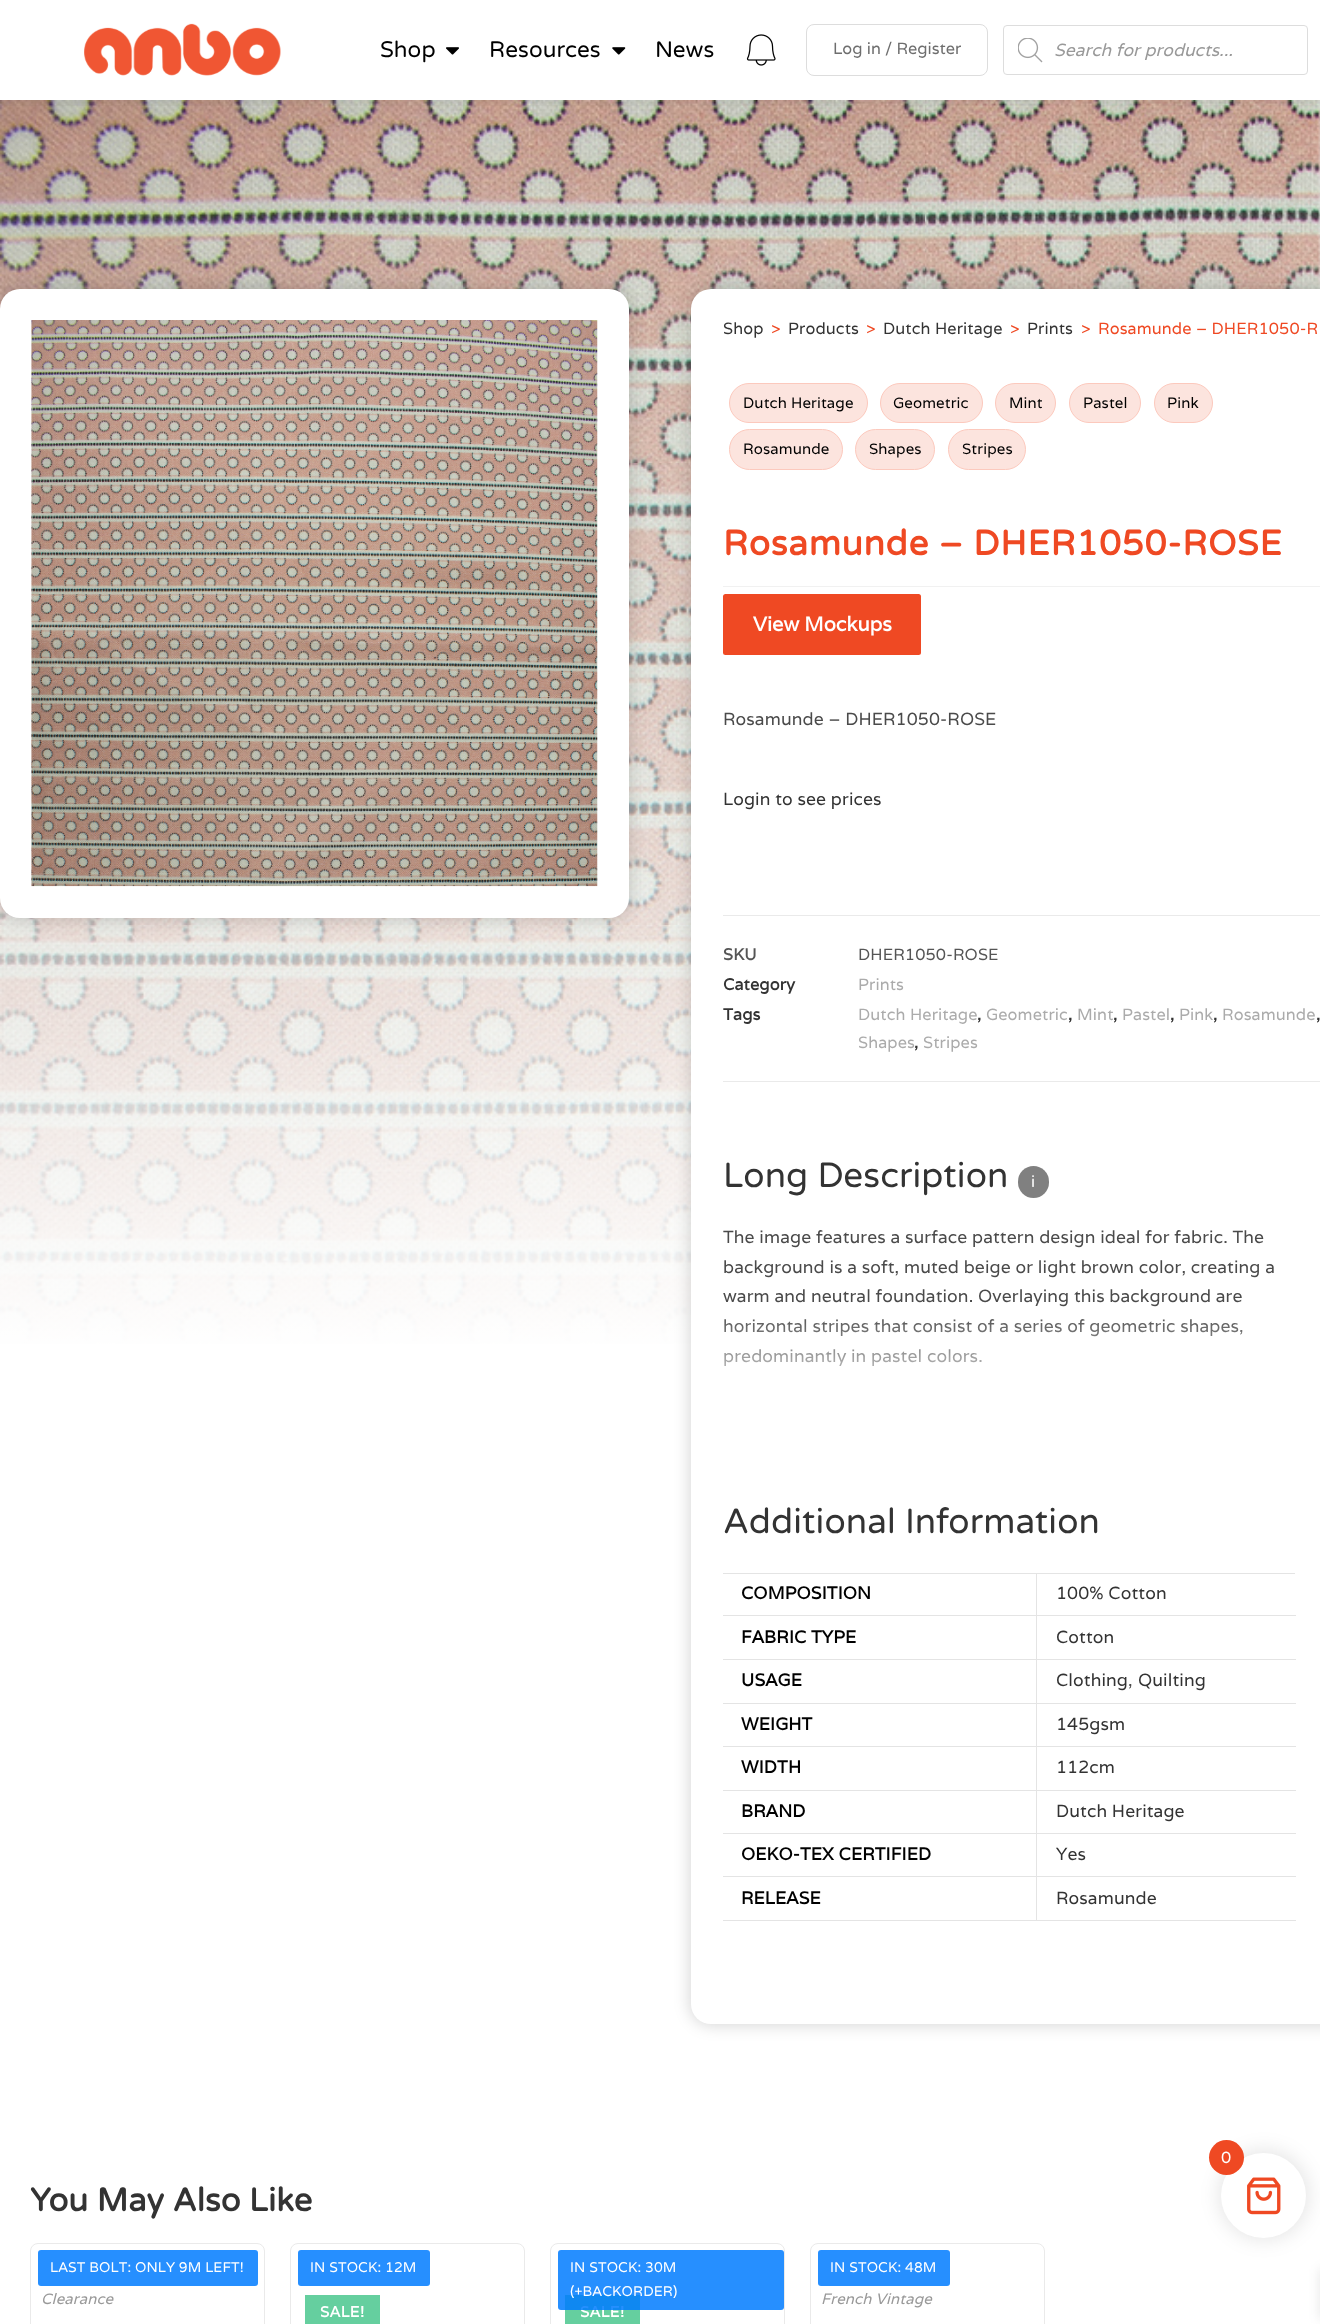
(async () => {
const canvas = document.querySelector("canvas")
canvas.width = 1320
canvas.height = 2324
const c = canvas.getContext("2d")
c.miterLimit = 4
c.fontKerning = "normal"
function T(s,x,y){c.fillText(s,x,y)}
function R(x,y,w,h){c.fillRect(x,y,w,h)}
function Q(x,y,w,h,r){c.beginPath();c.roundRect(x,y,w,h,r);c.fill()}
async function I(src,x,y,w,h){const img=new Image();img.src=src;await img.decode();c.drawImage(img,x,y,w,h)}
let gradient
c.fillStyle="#fff"
R(0,0,1320,2324)
await I("6.png",0,100,1320,1244)
c.save()
c.beginPath()
c.rect(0,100,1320,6)
c.clip()
c.fillStyle="#0000001a"
c.filter="blur(7.5px)"
c.beginPath()
c.rect(0,0,1320,100)
c.fill()
c.filter="none"
c.restore()
await I("1.png",84,23,197,53)
c.letterSpacing="0.12px"
c.font="22.5px Varela Round"
c.fillStyle="#000"
T("Shop",380,57)
await I("2.png",446,47,13,8)
T("Resources",489,57)
await I("3.png",612,47,14,8)
T("News",655,57)
await I("4.png",746,34,30,32)
c.beginPath()
c.roundRect(806.5,24.5,181,51,7.5)
c.strokeStyle="#ddd"
c.stroke()
c.letterSpacing="0px"
c.font="16.25px Varela"
c.fillStyle="#6e6e6e"
T("Log in / Register",833,54)
c.beginPath()
c.roundRect(1003.5,25.5,304,49,3.5)
c.stroke()
await I("5.png",1018,38,25,25)
c.font="italic 17.5px Varela"
c.fillStyle="#999"
T("Search for products...",1054,56)
gradient = c.createLinearGradient(660,100,660,1351)
gradient.addColorStop(0,"#ffffff00")
gradient.addColorStop(1,"#fff")
c.fillStyle = gradient
R(0,127,1320,1217)
c.fillStyle="#00000026"
c.filter="blur(7.5px)"
c.beginPath()
c.roundRect(-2,286,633,634,23)
c.fill()
c.filter="none"
c.fillStyle="#fff"
Q(0,289,629,629,20)
await I("7.png",31,320,567,567)
c.fillStyle="#00000026"
c.filter="blur(7.5px)"
c.beginPath()
c.roundRect(689,286,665,1740,23)
c.fill()
c.filter="none"
c.fillStyle="#fff"
Q(691,289,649,1735,20)
c.letterSpacing="0.12px"
c.font="16.25px Varela"
c.fillStyle="#333"
T("Shop",723,334)
c.fillStyle="#ef4923"
T(">",771,334)
c.fillStyle="#333"
T("Products",788,334)
c.fillStyle="#ef4923"
T(">",866,334)
c.fillStyle="#333"
T("Dutch Heritage",883,334)
c.fillStyle="#ef4923"
T(">",1010,334)
c.fillStyle="#333"
T("Prints",1027,334)
c.fillStyle="#ef4923"
T(">",1081,334)
T("Rosamunde – DHER1050-R",1098,334)
c.fillStyle="#fce4de"
c.beginPath()
c.roundRect(729.5,383.5,138,39,19.5)
c.fill()
c.strokeStyle="#fcc9bd"
c.stroke()
c.font="15px Varela"
c.fillStyle="#000"
T("Dutch Heritage",743,408)
c.fillStyle="#fce4de"
c.beginPath()
c.roundRect(880.5,383.5,102,39,19.5)
c.fill()
c.stroke()
c.fillStyle="#000"
T("Geometric",893,408)
c.fillStyle="#fce4de"
c.beginPath()
c.roundRect(995.5,383.5,60,39,19.5)
c.fill()
c.stroke()
c.fillStyle="#000"
T("Mint",1009,408)
c.fillStyle="#fce4de"
c.beginPath()
c.roundRect(1069.5,383.5,71,39,19.5)
c.fill()
c.stroke()
c.fillStyle="#000"
T("Pastel",1083,408)
c.fillStyle="#fce4de"
c.beginPath()
c.roundRect(1154.5,383.5,58,39,19.5)
c.fill()
c.stroke()
c.fillStyle="#000"
T("Pink",1167,408)
c.fillStyle="#fce4de"
c.beginPath()
c.roundRect(729.5,429.5,113,40,20)
c.fill()
c.stroke()
c.fillStyle="#000"
T("Rosamunde",743,454)
c.fillStyle="#fce4de"
c.beginPath()
c.roundRect(855.5,429.5,79,40,20)
c.fill()
c.stroke()
c.fillStyle="#000"
T("Shapes",869,454)
c.fillStyle="#fce4de"
c.beginPath()
c.roundRect(948.5,429.5,77,40,20)
c.fill()
c.stroke()
c.fillStyle="#000"
T("Stripes",962,454)
c.fillStyle="#f1f1f1"
R(723,586,597,1)
c.letterSpacing="0.75px"
c.font="bold 35px Varela Round"
c.fillStyle="#ef4923"
T("Rosamunde – DHER1050-ROSE",723,555)
Q(723,594,198,61,2.5)
c.letterSpacing="0px"
c.font="bold 20px Varela"
c.fillStyle="#fff"
T("View Mockups",753,631)
c.letterSpacing="0.12px"
c.font="17.5px Varela"
c.fillStyle="#4a4a4a"
T("Rosamunde – DHER1050-ROSE",723,725)
c.fillStyle="#333"
T("Login to see prices",723,805)
c.fillStyle="#eaeaea"
R(723,915,597,1)
R(723,1081,597,1)
c.font="bold 16.25px Varela"
c.fillStyle="#555"
T("SKU",723,960)
c.font="16.25px Varela"
T("DHER1050-ROSE",858,960)
c.font="bold 16.25px Varela"
c.fillStyle="#333"
T("Category",723,990)
c.font="16.25px Varela"
c.fillStyle="#ababab"
T("Prints",858,990)
c.font="bold 16.25px Varela"
c.fillStyle="#333"
T("Tags",723,1020)
c.font="16.25px Varela"
c.fillStyle="#ababab"
T("Dutch Heritage",858,1020)
c.font="bold 16.25px Varela"
c.fillStyle="#333"
T(",",977,1020)
c.font="16.25px Varela"
c.fillStyle="#ababab"
T("Geometric",986,1020)
c.font="bold 16.25px Varela"
c.fillStyle="#333"
T(",",1068,1020)
c.font="16.25px Varela"
c.fillStyle="#ababab"
T("Mint",1077,1020)
c.font="bold 16.25px Varela"
c.fillStyle="#333"
T(",",1113,1020)
c.font="16.25px Varela"
c.fillStyle="#ababab"
T("Pastel",1122,1020)
c.font="bold 16.25px Varela"
c.fillStyle="#333"
T(",",1170,1020)
c.font="16.25px Varela"
c.fillStyle="#ababab"
T("Pink",1179,1020)
c.font="bold 16.25px Varela"
c.fillStyle="#333"
T(",",1213,1020)
c.font="16.25px Varela"
c.fillStyle="#ababab"
T("Rosamunde",1222,1020)
c.font="bold 16.25px Varela"
c.fillStyle="#333"
T(",",1316,1020)
c.font="16.25px Varela"
c.fillStyle="#ababab"
T("Shapes",858,1048)
c.font="bold 16.25px Varela"
c.fillStyle="#333"
T(",",914,1048)
c.font="16.25px Varela"
c.fillStyle="#ababab"
T("Stripes",923,1048)
c.font="35px Varela Round"
c.fillStyle="#333"
T("Long Description",723,1187)
c.fillStyle="#808080"
Q(1018,1166,31,32,15.5)
c.font="16.25px Varela Round"
c.fillStyle="#fff"
T("i️",1031,1187)
c.font="17.5px Varela"
c.fillStyle="#4a4a4a"
T("The image features a surface pattern design ideal for fabric. The",723,1243)
T("background is a soft, muted beige or light brown color, creating a",723,1273)
T("warm and neutral foundation. Overlaying this background are",723,1302)
T("horizontal stripes that consist of a series of geometric shapes,",723,1332)
T("predominantly in pastel colors.",723,1362)
gradient = c.createLinearGradient(1021,1310,1021,1410)
gradient.addColorStop(0,"#ffffff00")
gradient.addColorStop(1,"#fff")
c.fillStyle = gradient
R(723,1319,520,47)
c.font="35px Varela Round"
c.fillStyle="#333"
T("Additional Information",723,1533)
c.fillStyle="#e4e4e4"
R(723,1573,572,1)
R(1036,1920,260,1)
R(1036,1876,1,45)
R(1036,1876,260,1)
R(1036,1833,1,45)
R(1036,1833,260,1)
R(1036,1790,1,44)
R(1036,1790,260,1)
R(1036,1746,1,45)
R(1036,1746,260,1)
R(1036,1703,1,45)
R(1036,1703,260,1)
R(1036,1659,1,45)
R(1036,1659,260,1)
R(1036,1615,1,45)
R(1036,1615,260,1)
R(1036,1573,1,43)
R(723,1615,315,1)
c.font="bold 17.5px Varela"
c.fillStyle="#000"
T("COMPOSITION",741,1599)
c.font="17.5px Varela"
c.fillStyle="#333"
T("100% Cotton",1056,1599)
c.fillStyle="#e4e4e4"
R(723,1659,315,1)
c.font="bold 17.5px Varela"
c.fillStyle="#000"
T("FABRIC TYPE",741,1643)
c.font="17.5px Varela"
c.fillStyle="#333"
T("Cotton",1056,1643)
c.fillStyle="#e4e4e4"
R(723,1703,315,1)
c.font="bold 17.5px Varela"
c.fillStyle="#000"
T("USAGE",741,1686)
c.font="17.5px Varela"
c.fillStyle="#333"
T("Clothing",1056,1686)
c.fillStyle="#4a4a4a"
T(",",1128,1686)
c.fillStyle="#333"
T("Quilting",1138,1686)
c.fillStyle="#e4e4e4"
R(723,1746,315,1)
c.font="bold 17.5px Varela"
c.fillStyle="#000"
T("WEIGHT",741,1730)
c.font="17.5px Varela"
c.fillStyle="#333"
T("145gsm",1056,1730)
c.fillStyle="#e4e4e4"
R(723,1790,315,1)
c.font="bold 17.5px Varela"
c.fillStyle="#000"
T("WIDTH",741,1773)
c.font="17.5px Varela"
c.fillStyle="#333"
T("112cm",1056,1773)
c.fillStyle="#e4e4e4"
R(723,1833,315,1)
c.font="bold 17.5px Varela"
c.fillStyle="#000"
T("BRAND",741,1817)
c.font="17.5px Varela"
c.fillStyle="#333"
T("Dutch Heritage",1056,1817)
c.fillStyle="#e4e4e4"
R(723,1876,315,1)
c.font="bold 17.5px Varela"
c.fillStyle="#000"
T("OEKO-TEX CERTIFIED",741,1860)
c.font="17.5px Varela"
c.fillStyle="#333"
T("Yes",1056,1860)
c.fillStyle="#e4e4e4"
R(723,1920,315,1)
c.font="bold 17.5px Varela"
c.fillStyle="#000"
T("RELEASE",741,1904)
c.font="17.5px Varela"
c.fillStyle="#333"
T("Rosamunde",1056,1904)
c.font="bold 32.5px Varela Round"
T("You May Also Like",30,2211)
c.beginPath()
c.roundRect(30.5,2243.5,234,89,7.5)
c.strokeStyle="#eaeaea"
c.stroke()
c.fillStyle="#268fff"
Q(38,2250,220,36,3)
c.font="14px Varela"
c.fillStyle="#fff"
T("LAST BOLT: ONLY 9M LEFT!",50,2272)
c.font="italic 15px Varela"
c.fillStyle="#999"
T("Clearance",41,2304)
c.beginPath()
c.roundRect(290.5,2243.5,234,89,7.5)
c.stroke()
c.fillStyle="#268fff"
Q(298,2250,132,36,3)
c.font="14px Varela"
c.fillStyle="#fff"
T("IN STOCK: 12M",310,2272)
c.fillStyle="#3fc387cc"
R(305,2295,75,29)
c.letterSpacing="0.5px"
c.font="bold 15px Varela"
c.fillStyle="#fff"
T("SALE!",320,2317)
c.beginPath()
c.roundRect(550.5,2243.5,234,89,7.5)
c.stroke()
c.fillStyle="#3fc387cc"
R(565,2295,75,29)
c.fillStyle="#fff"
T("SALE!",580,2317)
c.fillStyle="#007bffd9"
Q(558,2250,226,60,3)
c.letterSpacing="0.12px"
c.font="14px Varela"
c.fillStyle="#fff"
T("IN STOCK: 30M",570,2272)
T("(+BACKORDER)",570,2296)
c.beginPath()
c.roundRect(810.5,2243.5,234,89,7.5)
c.stroke()
c.fillStyle="#268fff"
Q(818,2250,132,36,3)
c.fillStyle="#fff"
T("IN STOCK: 48M",830,2272)
c.font="italic 15px Varela"
c.fillStyle="#999"
T("French Vintage",821,2304)
c.fillStyle="#0000001a"
c.filter="blur(9.5px)"
c.beginPath()
c.roundRect(1219,2150,90,90,45)
c.fill()
c.filter="none"
c.fillStyle="#fff"
c.beginPath()
c.arc(1263.5,2195.5,42.5,0,7)
c.fill()
c.fillStyle="#ef4923"
c.beginPath()
c.arc(1226.5,2157.5,17.5,0,7)
c.fill()
c.font="16.25px Varela"
c.fillStyle="#fff"
T("0",1221,2163)
await I("8.png",1247,2177,34,38)
c.fillStyle="#0000001a"
c.filter="blur(6px)"
c.beginPath()
c.rect(1320,2269,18,50)
c.fill()
c.filter="none"
})()
